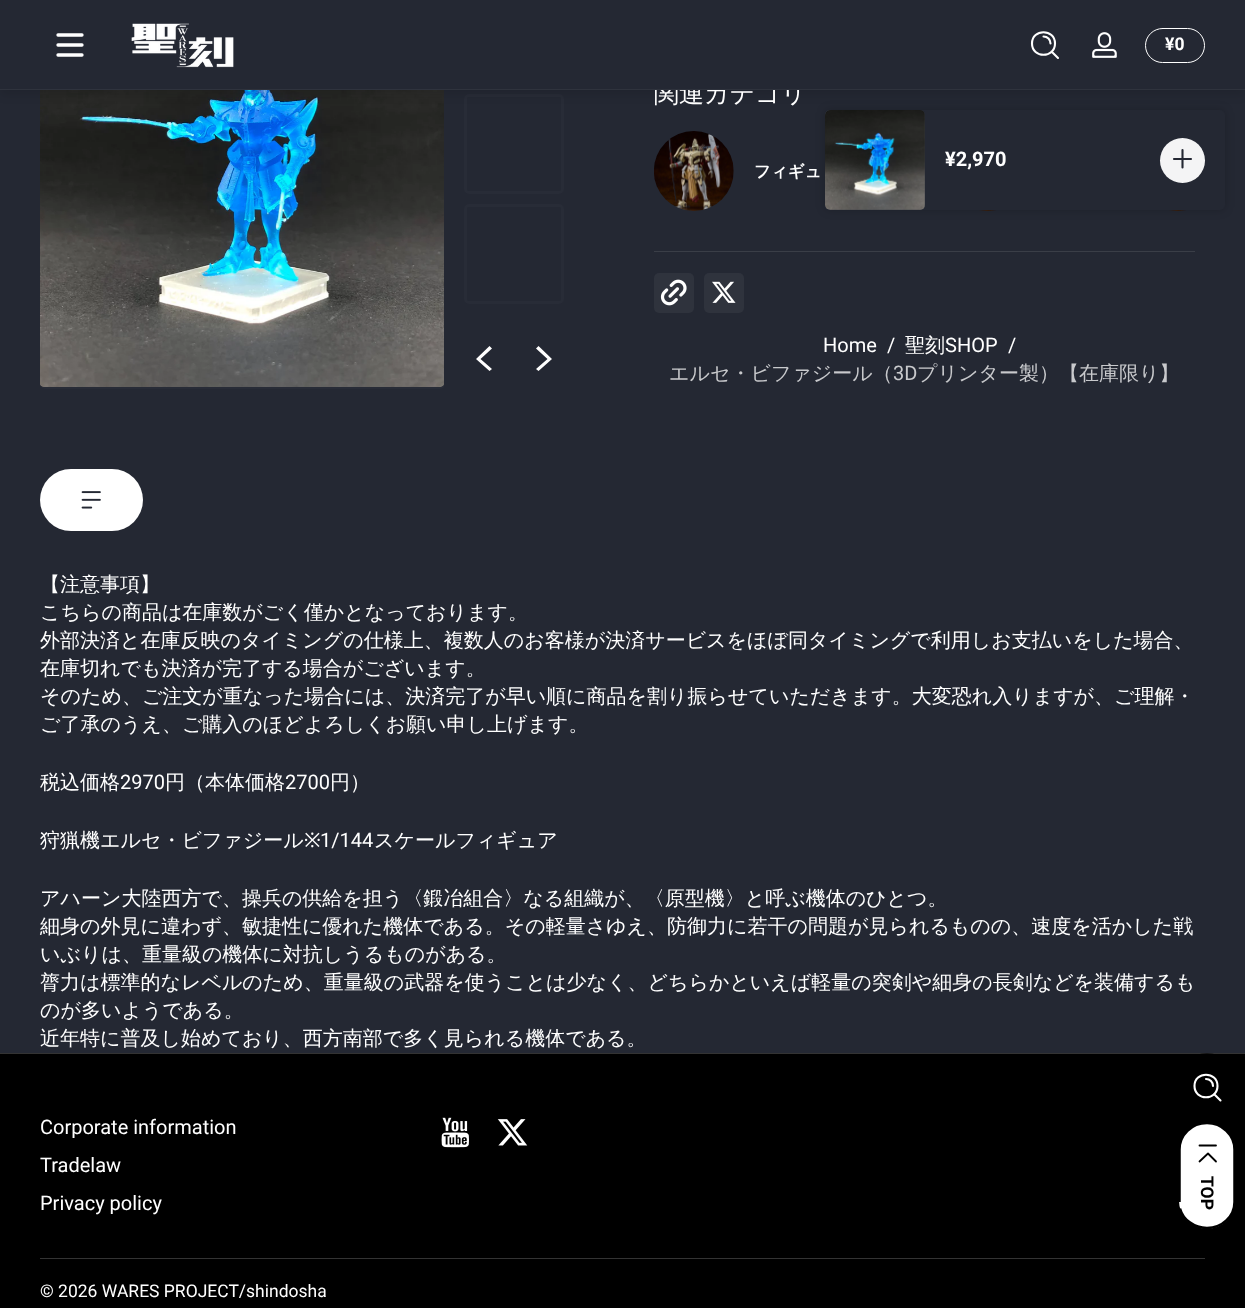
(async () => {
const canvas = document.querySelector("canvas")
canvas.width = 1245
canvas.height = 1308
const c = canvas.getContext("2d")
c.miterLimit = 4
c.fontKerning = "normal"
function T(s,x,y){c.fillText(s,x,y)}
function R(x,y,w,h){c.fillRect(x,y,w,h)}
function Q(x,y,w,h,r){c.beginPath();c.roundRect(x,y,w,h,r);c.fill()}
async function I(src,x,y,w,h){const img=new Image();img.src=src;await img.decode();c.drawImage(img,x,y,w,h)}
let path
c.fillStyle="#242833"
R(0,0,1245,1308)
c.save()
c.beginPath()
c.rect(40,0,404,389)
c.clip()
c.fillStyle="#282c37"
Q(40,-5,405,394,5)
c.restore()
await I("3.png",40,90,404,297)
c.beginPath()
c.roundRect(465.5,95.5,97,97,3.5)
c.strokeStyle="#282c37"
c.lineWidth=3
c.stroke()
await I("5.png",979,210,17,1)
await I("5.png",1169,210,17,1)
c.fillStyle="#00000033"
c.filter="blur(5px)"
c.beginPath()
c.roundRect(825,110,400,100,5)
c.fill()
c.filter="none"
c.fillStyle="#242833"
Q(825,110,400,100,5)
c.fillStyle="#3a3d47"
Q(825,110,100,100,5)
await I("6.png",825,110,100,100)
c.fillStyle="#0000001a"
c.filter="blur(5px)"
c.beginPath()
c.rect(0,5,1245,90)
c.fill()
c.filter="none"
c.font="500 25px WenQuanYi Zen Hei"
c.fillStyle="#fff"
T("関連カテゴリ",654,102)
c.fillStyle="#242833"
R(0,0,1245,89)
path = new Path2D("M58 35h24m-24 10h24m-24 10h24")
c.strokeStyle="#fff"
c.lineWidth=3.3
c.lineCap="round"
c.stroke(path)
await I("1.png",131,23,103,45)
path = new Path2D("M1043.5 36.5c4 0 7 3 7 7m1 8l6.5 6.5m-3-14.5c0 15-23 15-23 0c0-15 23-15 23 0z")
c.lineWidth=2.1
c.lineJoin="round"
c.stroke(path)
await I("2.png",1092,32,25,26)
c.beginPath()
c.roundRect(1145.5,28.5,59,34,17)
c.lineWidth=1
c.lineJoin="miter"
c.stroke()
c.font="bold 17.5px Roboto"
c.fillStyle="#fff"
T("¥0",1165,50)
c.fillStyle="#2f333d"
R(0,89,1245,1)
c.beginPath()
c.roundRect(465.5,205.5,97,97,3.5)
c.strokeStyle="#282c37"
c.lineWidth=3
c.stroke()
c.fillStyle="#fff"
path = new Path2D("M480.5 359l11.5-10.5l-2.5-2.5l-13.5 13l13.5 12l2.5-2z")
c.fill(path)
path = new Path2D("M547.5 359l-11.5-10.5l2.5-2.5l13.5 13l-13.5 12l-2.5-2z")
c.fill(path)
await I("4.png",654,131,80,80)
c.font="bold 16.5px WenQuanYi Zen Hei"
T("フィギュ",754,177)
c.font="bold 20px Roboto"
T("¥2,970",945,166)
c.beginPath()
c.arc(1182.5,160.5,22.5,0,7)
c.fill()
path = new Path2D("M1174 159h17m-8.5-9v17.5")
c.strokeStyle="#242833"
c.lineWidth=2.1
c.lineJoin="round"
c.stroke(path)
c.fillStyle="#2428330d"
path = new Path2D("M1182 138c30 0 30 45 0 45c-29 0-29-45 0-45z")
c.fill(path)
c.fillStyle="#3a3e47"
R(654,251,541,1)
c.fillStyle="#2f333d"
Q(654,273,40,40,5)
await I("7.png",660,279,27,27)
Q(704,273,40,40,5)
await I("8.png",712,281,24,22)
c.font="20px Roboto"
c.fillStyle="#fff"
T("Home",823,352)
T("/",887,352)
c.font="500 20px WenQuanYi Zen Hei"
T("聖刻",905,352)
c.font="20px Roboto"
T("SHOP",945,352)
T("/",1008,352)
c.font="500 20px WenQuanYi Zen Hei"
c.fillStyle="#c8c9cc"
T("エルセ・ビファジール（",669,380)
c.font="20px Roboto"
T("3D",893,380)
c.font="500 20px WenQuanYi Zen Hei"
T("プリンター製）【在庫限り】",917,380)
c.fillStyle="#fff"
Q(40,469,103,62,31)
await I("9.png",81,491,20,18)
T("【注意事項】",40,591)
T("こちらの商品は在庫数がごく僅かとなっております。",40,619)
T("外部決済と在庫反映のタイミングの仕様上、複数人のお客様が決済サービスをほぼ同タイミングで利用しお支払いをした場合、",40,647)
T("在庫切れでも決済が完了する場合がございます。",40,675)
T("そのため、ご注文が重なった場合には、決済完了が早い順に商品を割り振らせていただきます。大変恐れ入りますが、ご理解・",40,703)
T("ご了承のうえ、ご購入のほどよろしくお願い申し上げます。",40,731)
T("税込価格",40,789)
c.font="20px Roboto"
T("2970",120,789)
c.font="500 20px WenQuanYi Zen Hei"
T("円（本体価格",165,789)
c.font="20px Roboto"
T("2700",285,789)
c.font="500 20px WenQuanYi Zen Hei"
T("円）",330,789)
T("狩猟機エルセ・ビファジール",40,847)
c.font="20px Noto Sans"
T("※",304,847)
c.font="20px Roboto"
T("1/144",320,847)
c.font="500 20px WenQuanYi Zen Hei"
T("スケールフィギュア",374,847)
T("アハーン大陸西方で、操兵の供給を担う〈鍛冶組合〉なる組織が、〈原型機〉と呼ぶ機体のひとつ。",40,905)
T("細身の外見に違わず、敏捷性に優れた機体である。その軽量さゆえ、防御力に若干の問題が見られるものの、速度を活かした戦",40,933)
T("いぶりは、重量級の機体に対抗しうるものがある。",40,961)
T("膂力は標準的なレベルのため、重量級の武器を使うことは少なく、どちらかといえば軽量の突剣や細身の長剣などを装備するも",40,989)
T("のが多いようである。",40,1017)
T("近年特に普及し始めており、西方南部で多く見られる機体である。",40,1045)
c.fillStyle="#000"
R(0,1054,1245,254)
c.fillStyle="#333"
R(0,1053,1245,1)
c.font="20px Roboto"
c.fillStyle="#fff"
T("Corporate information",40,1134)
T("Tradelaw",40,1172)
T("Privacy policy",40,1210)
await I("10.png",441,1117,28,31)
await I("11.png",497,1119,31,27)
c.fillStyle="#333"
R(40,1258,1165,1)
c.font="17.5px Roboto"
c.fillStyle="#fff"
T("© 2026 WARES PROJECT/shindosha",40,1297)
c.fillStyle="#00000099"
Q(1179,1053,56,176,28)
path = new Path2D("M1206 1079c4 0 7 3 7 7m1 8l6.5 6.5m-3-14.5c0 15-23 15-23 0c0-15 23-15 23 0z")
c.strokeStyle="#fff"
c.stroke(path)
c.fillStyle="#fff"
Q(1179,1123,56,106,28)
path = new Path2D("M1199.5 1161.5l8.5-8l8 8m-16.5-16h16.5")
c.strokeStyle="#000"
c.lineWidth=1.8
c.stroke(path)
c.save()
c.beginPath()
c.rect(1179,1123,56,106)
c.clip()
path = new Path2D("M1179.5 1202v-52.5c0-14.5 12-26.5 27.5-26.5c15 0 27.5 12 27.5 26.5v52.5c0 14.5-12.5 26-27.5 26c-13 0-24-8.5-27-19.5")
c.lineWidth=2.5
c.lineCap="butt"
c.lineJoin="miter"
c.stroke(path)
c.restore()
c.font="bold 17.5px Roboto"
c.fillStyle="#000"
c.save()
c.translate(1201,1176)
c.rotate(90 * Math.PI / 180)
c.fillText("TOP",0,0)
c.restore()
})()
